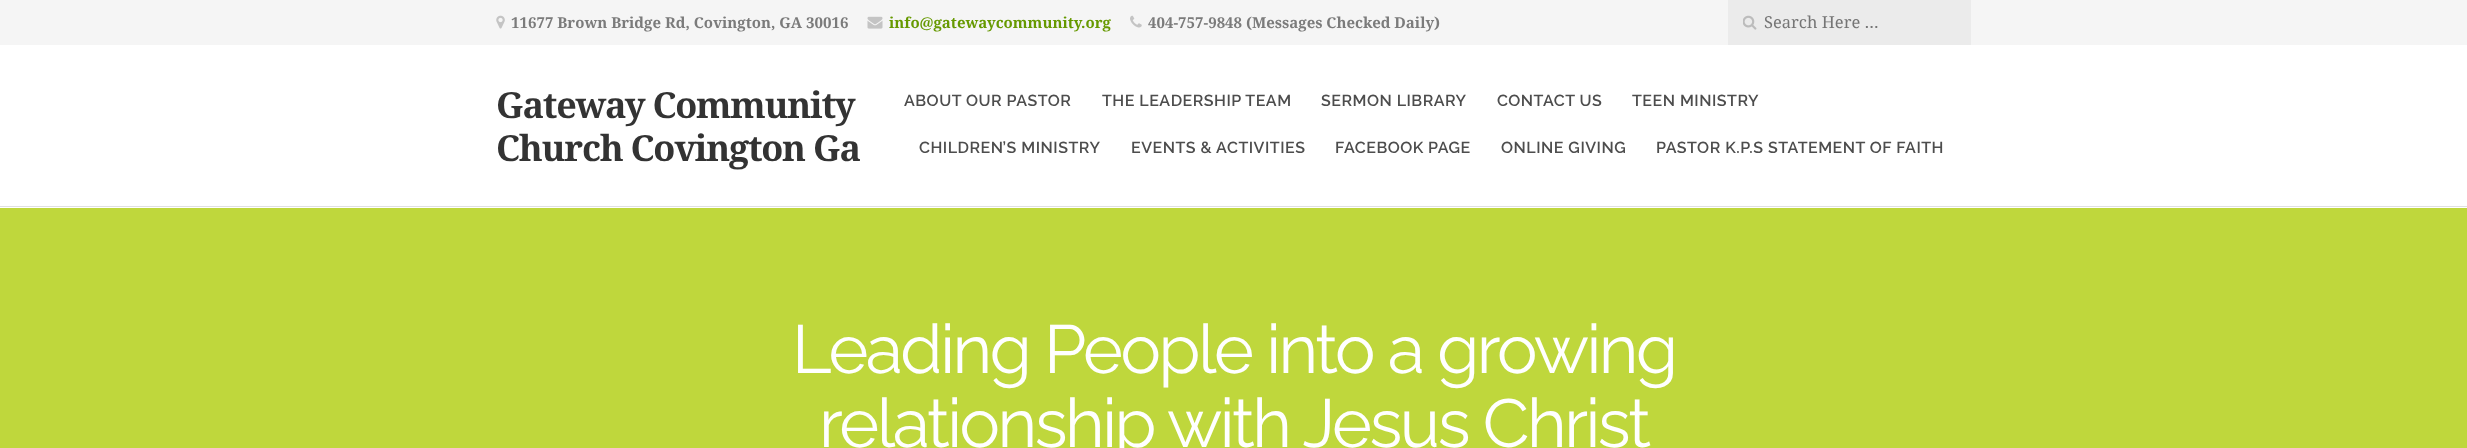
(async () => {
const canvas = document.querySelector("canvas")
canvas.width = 2467
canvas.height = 448
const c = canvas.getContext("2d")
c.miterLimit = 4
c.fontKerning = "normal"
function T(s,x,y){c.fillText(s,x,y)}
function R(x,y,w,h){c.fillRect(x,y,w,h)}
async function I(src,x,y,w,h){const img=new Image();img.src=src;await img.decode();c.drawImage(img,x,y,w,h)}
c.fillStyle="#bfd73c"
R(0,0,2467,448)
c.fillStyle="#fff"
R(0,45,2467,163)
c.fillStyle="#e0e0e0"
R(0,206,2467,1)
c.fillStyle="#f5f5f5"
R(0,0,2467,45)
await I("1.png",496,15,9,14)
c.font="bold 15px Noto Serif"
c.fillStyle="#7b7b7b"
T("11677 Brown Bridge Rd, Covington, GA 30016",511,28)
await I("2.png",867,16,16,13)
c.fillStyle="#690"
T("info@gatewaycommunity.org",889,28)
await I("3.png",1130,15,12,13)
c.fillStyle="#7b7b7b"
T("404-757-9848 (Messages Checked Daily)",1148,28)
c.fillStyle="#ebebeb"
R(1728,0,243,45)
await I("4.png",1743,15,14,15)
c.font="16.5px Noto Serif"
c.fillStyle="#757575"
T("Search Here …",1764,28)
c.letterSpacing="-1.25px"
c.font="bold 36px Noto Serif"
c.fillStyle="#333"
T("Gateway Community",496,118)
T("Church Covington Ga",496,161)
c.letterSpacing="0.5px"
c.font="600 16px Raleway"
c.fillStyle="#4d4d4d"
T("ABOUT OUR PASTOR",904,106)
T("THE LEADERSHIP TEAM",1102,106)
T("SERMON LIBRARY",1321,106)
T("CONTACT US",1497,106)
T("TEEN MINISTRY",1632,106)
T("CHILDREN’S MINISTRY",919,153)
T("EVENTS & ACTIVITIES",1131,153)
T("FACEBOOK PAGE",1335,153)
T("ONLINE GIVING",1501,153)
T("PASTOR K.P.S STATEMENT OF FAITH",1656,153)
c.letterSpacing="-2.5px"
c.font="68px Raleway"
c.fillStyle="#fff"
T("Leading People into a growing",792,373)
T("relationship with Jesus Christ",819,447)
})()
